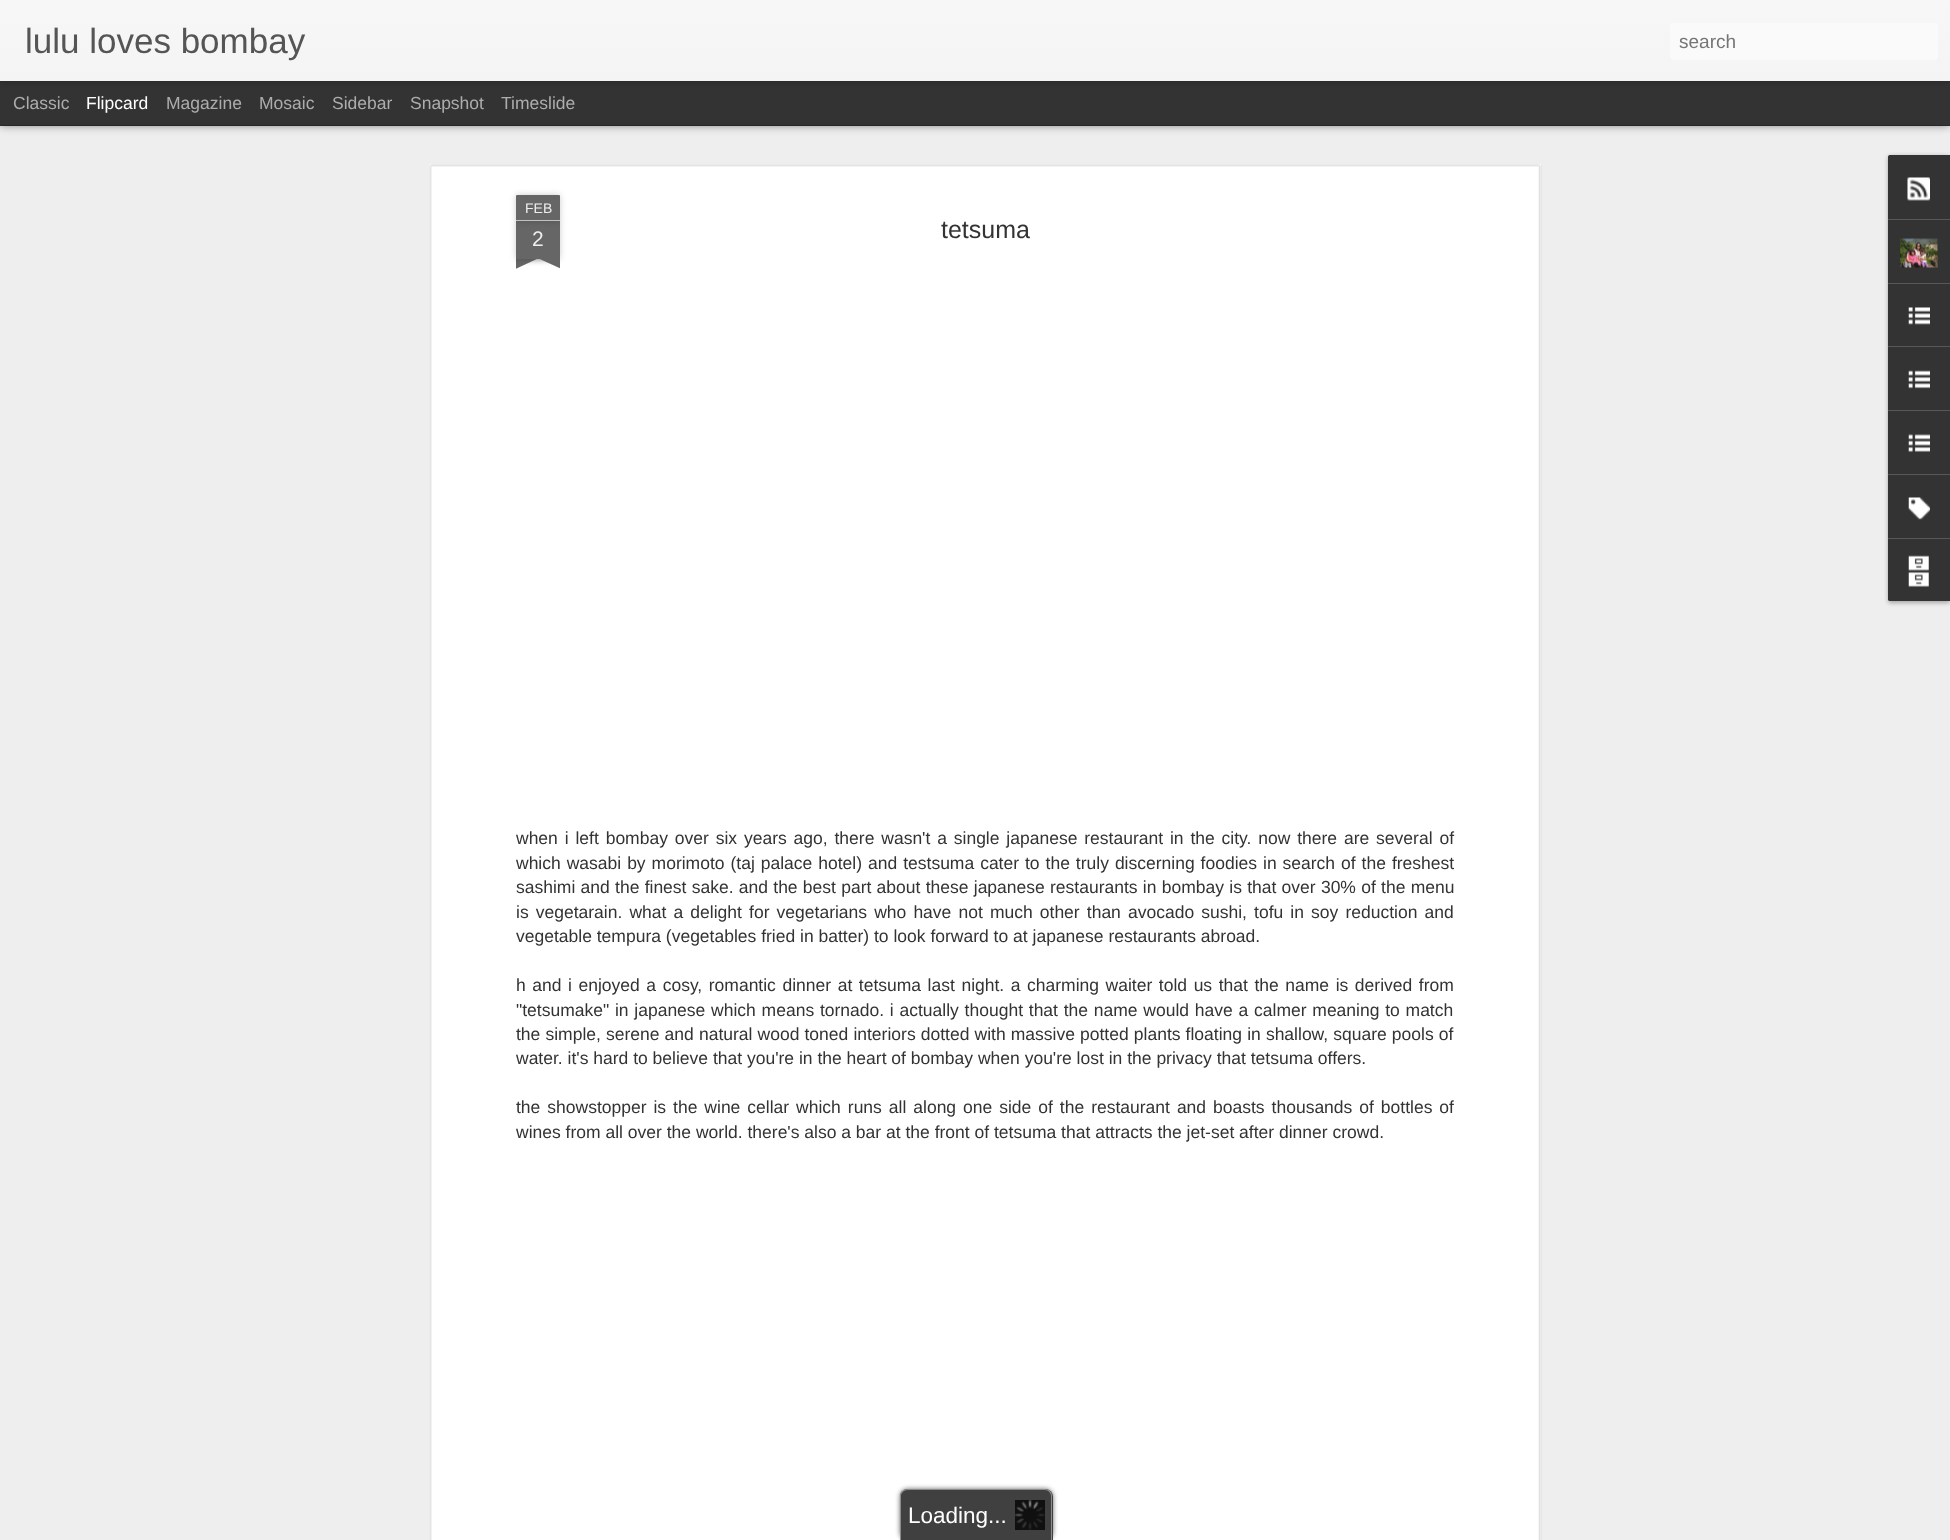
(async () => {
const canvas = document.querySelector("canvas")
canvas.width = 1950
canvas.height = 1540
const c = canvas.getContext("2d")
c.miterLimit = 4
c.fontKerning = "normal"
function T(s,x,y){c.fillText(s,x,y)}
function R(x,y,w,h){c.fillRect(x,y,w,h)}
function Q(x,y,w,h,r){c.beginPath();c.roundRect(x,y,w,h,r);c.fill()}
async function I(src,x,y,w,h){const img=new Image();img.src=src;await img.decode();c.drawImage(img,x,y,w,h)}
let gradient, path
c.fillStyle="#333"
R(0,0,1950,1540)
c.fillStyle="#eee"
R(0,126,1950,1414)
c.fillStyle="#00000080"
c.filter="blur(5px)"
c.beginPath()
c.rect(0,81,1950,44)
c.fill()
c.filter="none"
c.fillStyle="#333"
R(0,81,1950,44)
c.fillStyle="#0000004d"
c.filter="blur(3px)"
c.beginPath()
c.rect(0,0,1950,81)
c.fill()
c.filter="none"
gradient = c.createLinearGradient(0,0,0,81)
gradient.addColorStop(0,"#f7f7f7")
gradient.addColorStop(1,"#f4f4f4")
c.fillStyle = gradient
R(0,0,1950,81)
c.font="35px Liberation Sans"
c.fillStyle="#555"
T("lulu loves bombay",25,53)
c.fillStyle="#fafafa"
Q(1670,23,268,37,4)
c.font="19px Liberation Sans"
c.fillStyle="#757575"
T("search",1679,48)
c.font="17.5px Liberation Sans"
c.fillStyle="#adadad"
T("Classic",13,109)
c.fillStyle="#fff"
T("Flipcard",86,109)
c.fillStyle="#adadad"
T("Magazine",166,109)
T("Mosaic",259,109)
T("Sidebar",332,109)
T("Snapshot",410,109)
T("Timeslide",501,109)
c.fillStyle="#fff"
R(429,164,1112,1376)
await I("1.png",429,164,1113,1376)
c.fillStyle="#00000033"
c.filter="blur(3px)"
c.beginPath()
c.rect(516,221,44,38)
c.fill()
c.filter="none"
c.fillStyle="#666"
R(516,221,44,38)
c.fillStyle="#00000033"
c.filter="blur(3px)"
c.beginPath()
c.roundRect(516,195,44,26,1)
c.fill()
c.filter="none"
c.fillStyle="#666"
c.beginPath()
c.roundRect(516,195,44,26,[1,1,0,0])
c.fill()
c.fillStyle="#c2c2c2"
R(516,220,44,1)
c.font="14px Liberation Sans"
c.fillStyle="#eee"
T("FEB",525,213)
c.font="21px Liberation Sans"
T("2",532,246)
c.save()
c.beginPath()
c.rect(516,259,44,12)
c.clip()
c.fillStyle="#00000033"
c.filter="blur(3px)"
c.beginPath()
c.rect(505,246,63,13)
c.fill()
c.filter="none"
c.restore()
c.save()
c.beginPath()
c.rect(516,259,44,12)
c.clip()
c.fillStyle="#666"
path = new Path2D("M505 260l57-26l5 11l-56 26z")
c.fill(path)
c.restore()
c.save()
c.beginPath()
c.rect(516,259,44,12)
c.clip()
c.fillStyle="#00000033"
c.filter="blur(3px)"
c.beginPath()
c.rect(509,246,62,13)
c.fill()
c.filter="none"
c.restore()
c.save()
c.beginPath()
c.rect(516,259,44,12)
c.clip()
c.fillStyle="#666"
path = new Path2D("M514 234l57 26l-5 11l-57-26z")
c.fill(path)
c.restore()
c.font="25px Liberation Sans"
c.fillStyle="#333"
T("tetsuma",941,238)
c.wordSpacing="2px"
c.font="17.5px Liberation Sans"
T("when i left bombay over six years ago, there wasn't a single japanese restaurant in the city. now there are several of",516,844)
c.wordSpacing="1.1px"
T("which wasabi by morimoto (taj palace hotel) and testsuma cater to the truly discerning foodies in search of the freshest",516,869)
c.wordSpacing="0.4px"
T("sashimi and the finest sake. and the best part about these japanese restaurants in bombay is that over 30% of the menu",516,893)
c.wordSpacing="2.25px"
T("is vegetarain. what a delight for vegetarians who have not much other than avocado sushi, tofu in soy reduction and",516,918)
c.wordSpacing="0px"
T("vegetable tempura (vegetables fried in batter) to look forward to at japanese restaurants abroad.",516,942)
c.wordSpacing="1.7px"
T("h and i enjoyed a cosy, romantic dinner at tetsuma last night. a charming waiter told us that the name is derived from",516,991)
c.wordSpacing="0.9px"
T("\"tetsumake\" in japanese which means tornado. i actually thought that the name would have a calmer meaning to match",516,1016)
c.wordSpacing="0.25px"
T("the simple, serene and natural wood toned interiors dotted with massive potted plants floating in shallow, square pools of",516,1040)
c.wordSpacing="0px"
T("water. it's hard to believe that you're in the heart of bombay when you're lost in the privacy that tetsuma offers.",516,1064)
c.wordSpacing="2.1px"
T("the showstopper is the wine cellar which runs all along one side of the restaurant and boasts thousands of bottles of",516,1113)
c.wordSpacing="0px"
T("wines from all over the world. there's also a bar at the front of tetsuma that attracts the jet-set after dinner crowd.",516,1138)
c.fillStyle="#0000004d"
c.filter="blur(2px)"
c.beginPath()
c.roundRect(1888,156,62,447,2.5)
c.fill()
c.filter="none"
c.fillStyle="#333"
c.beginPath()
c.roundRect(1888,155,62,446,[2.5,0,0,2.5])
c.fill()
c.beginPath()
c.roundRect(1888,155,62,64,[2.5,0,0,0])
c.fill()
await I("2.png",1907,177,23,24)
c.fillStyle="#585858"
R(1888,219,62,1)
await I("3.png",1900,238,38,30)
R(1888,283,62,1)
await I("4.png",1908,307,22,18)
R(1888,346,62,1)
await I("5.png",1908,370,22,19)
R(1888,410,62,1)
await I("6.png",1908,434,22,18)
R(1888,474,62,1)
await I("7.png",1908,497,22,23)
c.fillStyle="#333"
c.beginPath()
c.roundRect(1888,538,62,63,[0,0,0,2.5])
c.fill()
c.fillStyle="#585858"
R(1888,538,62,1)
await I("8.png",1908,555,21,32)
c.fillStyle="#666"
c.filter="blur(2.5px)"
c.beginPath()
c.roundRect(900,1489,153,51,8)
c.fill()
c.filter="none"
c.fillStyle="#404040"
c.beginPath()
c.roundRect(900,1489,153,51,[8,8,0,0])
c.fill()
c.fillStyle="#8c8c8c"
path = new Path2D("M908 1489h137c4 0 7 3 7 7v44h-152v-44c0-4 3-7 8-7zm0 1h137c3 0 6 3 6 6v44h-150v-44c0-3 3-6 7-6z")
c.fill(path,"evenodd")
await I("9.png",1015,1500,30,30)
c.font="22.5px Liberation Sans"
c.fillStyle="#fff"
T("Loading...",908,1523)
})()
